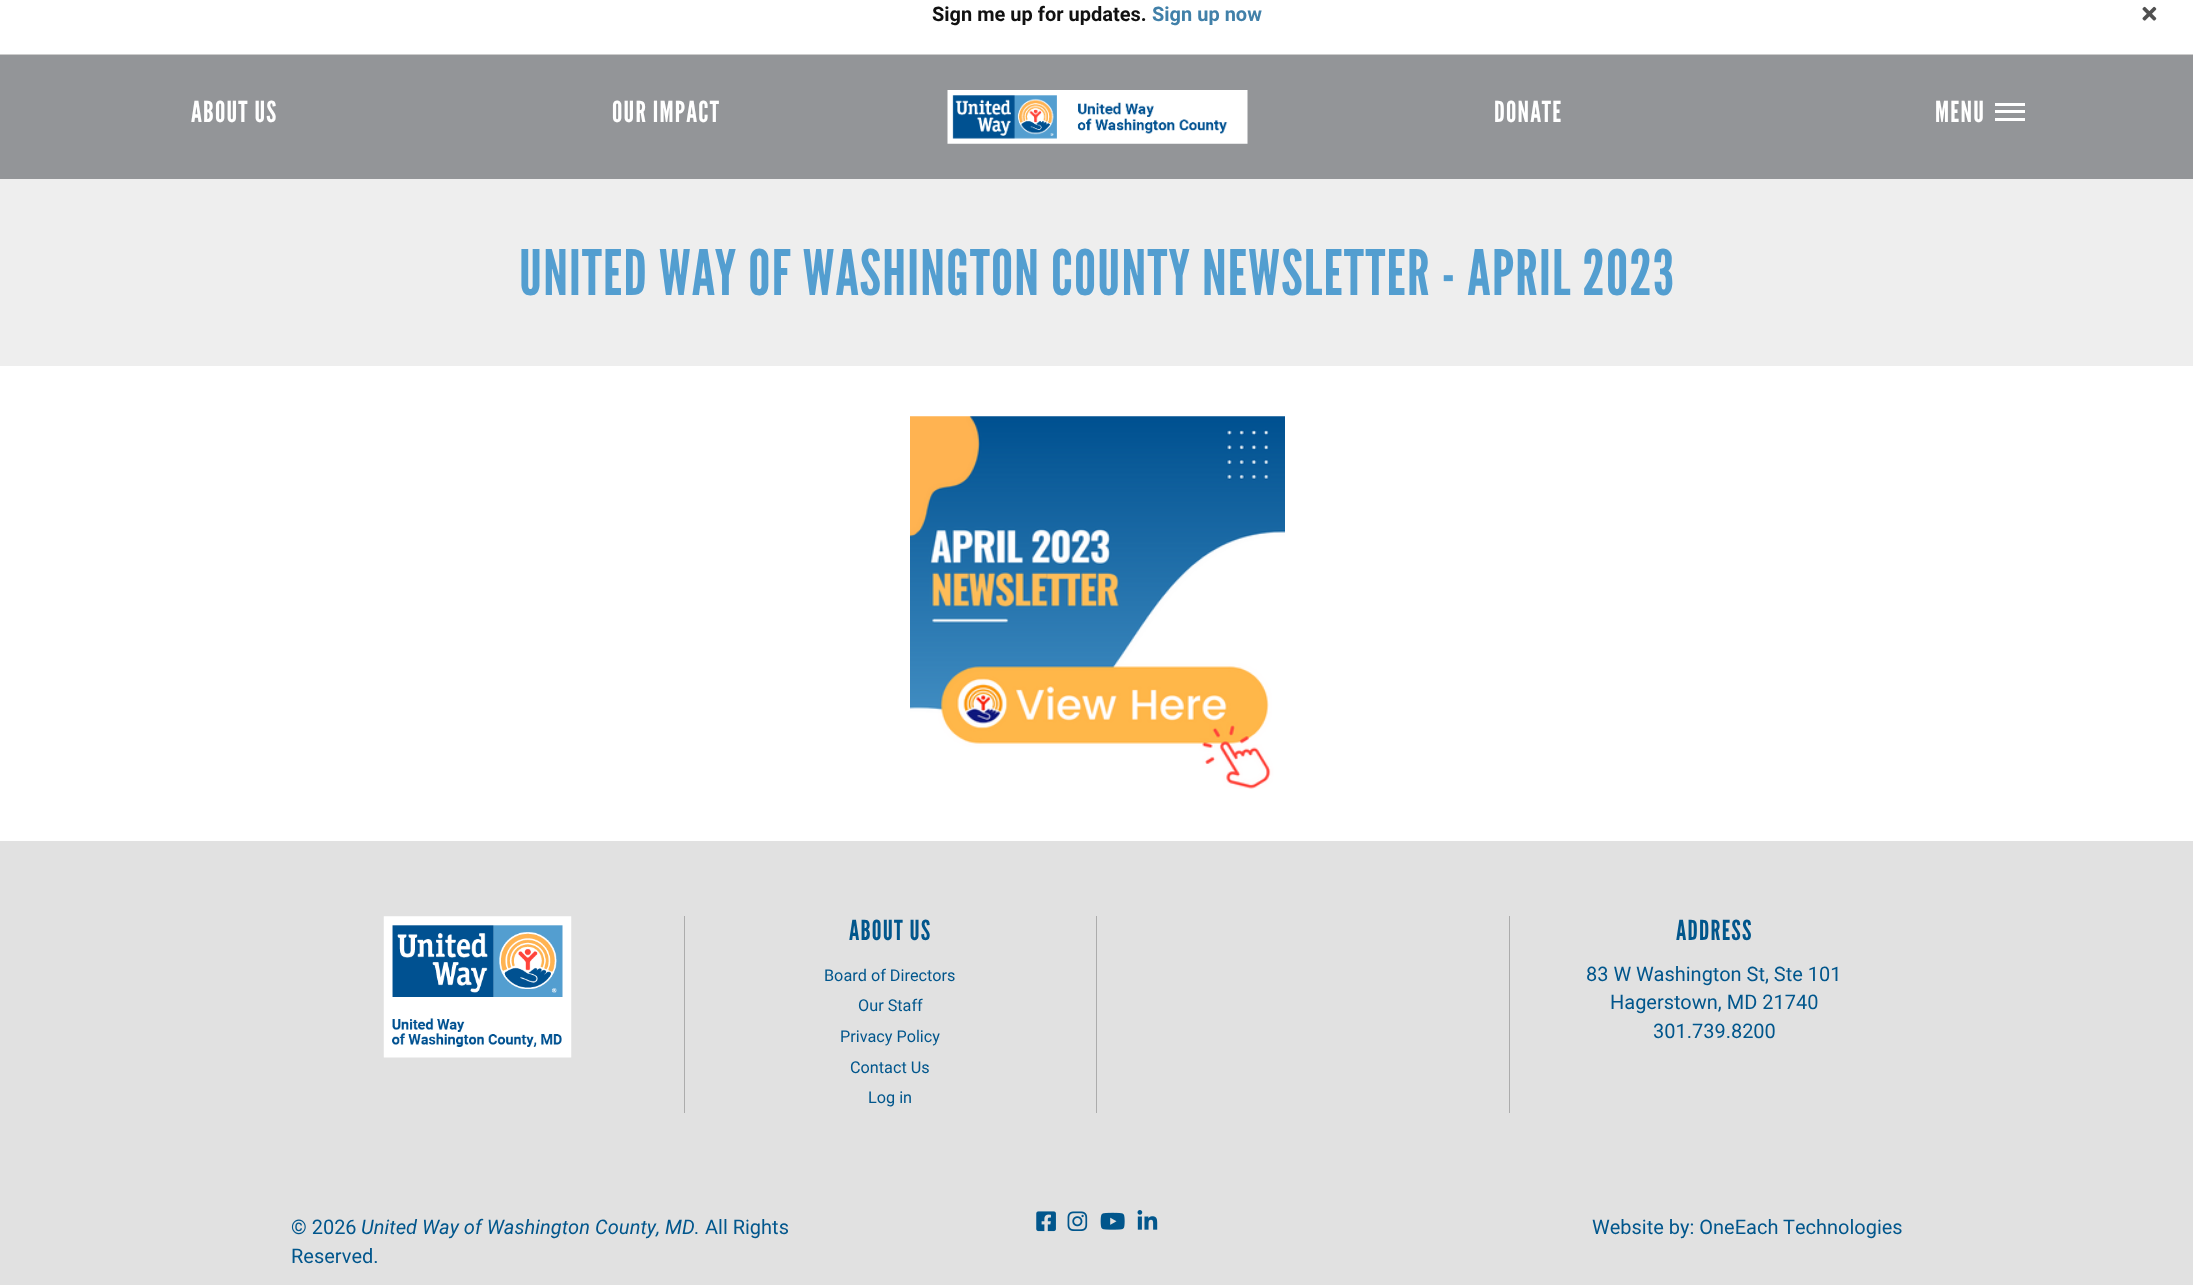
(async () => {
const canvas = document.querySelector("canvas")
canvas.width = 2193
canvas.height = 1285
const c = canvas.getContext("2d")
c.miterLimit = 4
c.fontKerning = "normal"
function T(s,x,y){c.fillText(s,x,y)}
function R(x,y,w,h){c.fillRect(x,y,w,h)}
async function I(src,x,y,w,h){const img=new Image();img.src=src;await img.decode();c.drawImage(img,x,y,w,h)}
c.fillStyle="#fff"
R(0,0,2193,1285)
c.fillStyle="#ccc"
R(0,54,2193,1)
c.font="bold 20px Roboto"
c.fillStyle="#111"
T("Sign me up for updates.",932,21)
c.fillStyle="#4180a9"
T("Sign up now",1152,21)
await I("1.png",2142,6,15,15)
c.fillStyle="#939598"
R(0,55,2193,124)
c.letterSpacing="1.25px"
c.font="29px League Gothic"
c.fillStyle="#fff"
T("ABOUT US",191,122)
T("OUR IMPACT",612,122)
await I("2.png",947,90,301,54)
T("DONATE",1494,122)
T("MENU",1935,122)
R(1995,103,30,3)
R(1995,118,30,3)
R(1995,110,30,3)
c.fillStyle="#eee"
R(0,179,2193,187)
c.font="62.5px League Gothic"
c.fillStyle="#539ed0"
T("UNITED WAY OF WASHINGTON COUNTY NEWSLETTER - APRIL 2023",519,295)
await I("3.png",910,416,375,373)
c.fillStyle="#e1e1e1"
R(0,841,2193,444)
c.fillStyle="#acacac"
R(684,916,1,197)
await I("4.png",383,916,189,142)
R(1096,916,1,197)
c.font="27.5px League Gothic"
c.fillStyle="#01568c"
T("ABOUT US",849,940)
c.letterSpacing="0px"
c.font="16.25px Roboto"
T("Board of Directors",824,981)
T("Our Staff",858,1011)
T("Privacy Policy",840,1042)
T("Contact Us",850,1073)
T("Log in",868,1103)
c.fillStyle="#acacac"
R(1509,916,1,197)
c.letterSpacing="1.25px"
c.font="27.5px League Gothic"
c.fillStyle="#01568c"
T("ADDRESS",1676,940)
c.letterSpacing="0px"
c.font="20px Roboto"
T("83 W Washington St, Ste 101",1586,981)
T("Hagerstown, MD 21740",1610,1009)
T("301.739.8200",1653,1038)
T("© 2026",291,1234)
c.font="italic 20px Roboto"
T("United Way of Washington County, MD.",361,1234)
c.font="20px Roboto"
T("All Rights",705,1234)
T("Reserved.",291,1263)
await I("5.png",1036,1211,20,21)
await I("6.png",1067,1211,21,20)
await I("7.png",1100,1212,25,18)
await I("8.png",1137,1210,21,20)
T("Website by: OneEach Technologies",1592,1234)
})()
